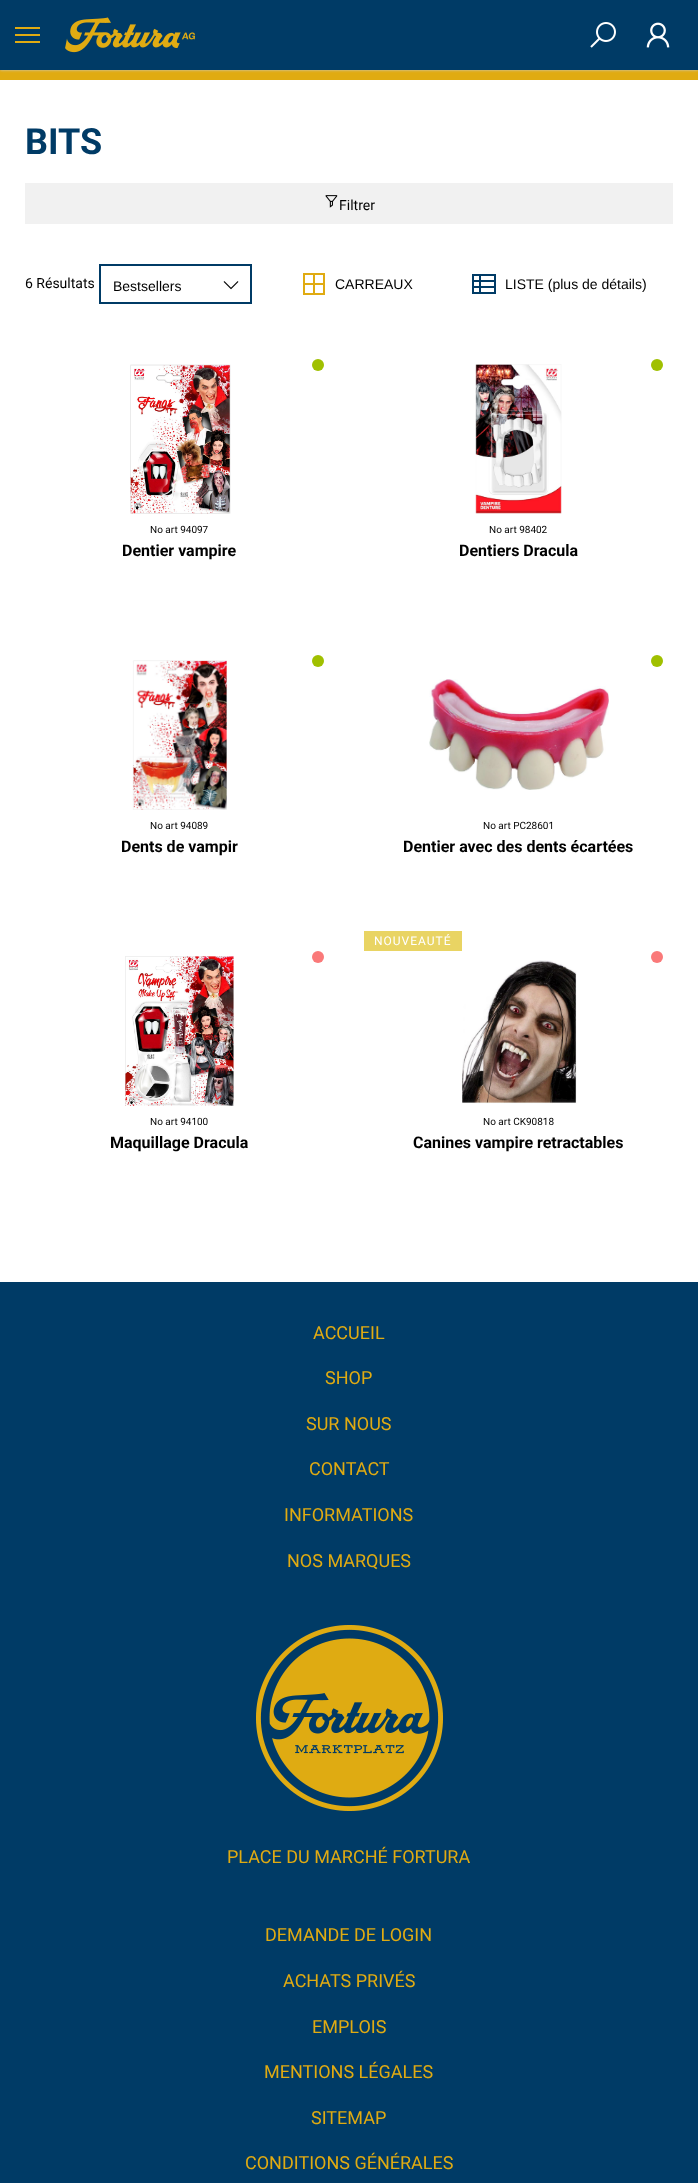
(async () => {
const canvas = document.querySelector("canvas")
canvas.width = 698
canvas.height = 2183
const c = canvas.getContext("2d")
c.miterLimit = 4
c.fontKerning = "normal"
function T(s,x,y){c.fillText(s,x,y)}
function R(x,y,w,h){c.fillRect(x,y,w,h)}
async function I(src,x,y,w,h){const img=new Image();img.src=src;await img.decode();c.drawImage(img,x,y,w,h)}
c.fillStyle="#fff"
R(0,0,698,2183)
c.fillStyle="#003b66"
R(0,0,698,70)
c.fillStyle="#e0ab12"
R(0,70,698,10)
c.save()
c.beginPath()
c.rect(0,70,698,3)
c.clip()
c.fillStyle="#ccc"
c.filter="blur(1.5px)"
c.beginPath()
c.rect(0,0,698,70)
c.fill()
c.filter="none"
c.restore()
R(15,34,25,2)
R(15,27,25,2)
R(15,41,25,2)
await I("1.png",65,17,130,36)
await I("2.png",590,22,26,26)
await I("3.png",646,22,24,26)
c.font="bold 36px Roboto"
c.fillStyle="#003b66"
T("BITS",25,154)
c.fillStyle="#f1f1f1"
R(25,183,648,41)
await I("4.png",325,195,13,13)
c.font="14px Roboto"
c.fillStyle="#000"
T("Filtrer",339,210)
T("6 Résultats",25,288)
await I("5.png",223,281,16,9)
c.strokeStyle="#003b66"
c.lineWidth=2
c.strokeRect(100,265,151,38)
c.font="14px Liberation Sans"
T("Bestsellers",113,291)
await I("6.png",303,273,22,22)
T("CARREAUX",335,289)
await I("7.png",472,274,24,20)
T("LISTE (plus de détails)",505,289)
await I("8.png",130,364,101,150)
c.fillStyle="#a0c000"
c.beginPath()
c.arc(318,365,6,0,7)
c.fill()
c.font="10px Roboto"
c.fillStyle="#000"
T("No art 94097",150,533)
c.font="bold 16px Roboto"
T("Dentier vampire",122,556)
await I("9.png",475,364,87,150)
c.fillStyle="#a0c000"
c.beginPath()
c.arc(657,365,6,0,7)
c.fill()
c.font="10px Roboto"
c.fillStyle="#000"
T("No art 98402",489,533)
c.font="bold 16px Roboto"
T("Dentiers Dracula",459,556)
await I("10.png",132,660,95,150)
c.fillStyle="#a0c000"
c.beginPath()
c.arc(318,661,6,0,7)
c.fill()
c.font="10px Roboto"
c.fillStyle="#000"
T("No art 94089",150,829)
c.font="bold 16px Roboto"
T("Dents de vampir",121,852)
await I("11.png",429,679,180,111)
c.fillStyle="#a0c000"
c.beginPath()
c.arc(657,661,6,0,7)
c.fill()
c.font="10px Roboto"
c.fillStyle="#000"
T("No art PC28601",483,829)
c.font="bold 16px Roboto"
T("Dentier avec des dents écartées",403,852)
await I("12.png",125,956,109,150)
c.fillStyle="#fa7979"
c.beginPath()
c.arc(318,957,6,0,7)
c.fill()
c.font="10px Roboto"
c.fillStyle="#000"
T("No art 94100",150,1125)
c.font="bold 16px Roboto"
T("Maquillage Dracula",110,1148)
c.fillStyle="#e9d463"
R(364,931,98,20)
c.letterSpacing="1px"
c.font="12px Roboto"
c.fillStyle="#fff"
T("NOUVEAUTÉ",374,945)
await I("13.png",462,960,115,144)
c.fillStyle="#fa7979"
c.beginPath()
c.arc(657,957,6,0,7)
c.fill()
c.letterSpacing="0px"
c.font="10px Roboto"
c.fillStyle="#000"
T("No art CK90818",483,1125)
c.font="bold 16px Roboto"
T("Canines vampire retractables",413,1148)
c.fillStyle="#003b66"
R(0,1282,698,901)
c.font="18px Roboto"
c.fillStyle="#e0ab12"
T("ACCUEIL",313,1339)
T("SHOP",325,1384)
T("SUR NOUS",306,1430)
T("CONTACT",309,1475)
T("INFORMATIONS",284,1521)
T("NOS MARQUES",287,1567)
await I("14.png",256,1625,187,186)
T("PLACE DU MARCHÉ FORTURA",227,1863)
T("DEMANDE DE LOGIN",265,1941)
T("ACHATS PRIVÉS",283,1987)
T("EMPLOIS",312,2033)
T("MENTIONS LÉGALES",264,2078)
T("SITEMAP",311,2124)
T("CONDITIONS GÉNÉRALES",245,2169)
})()
